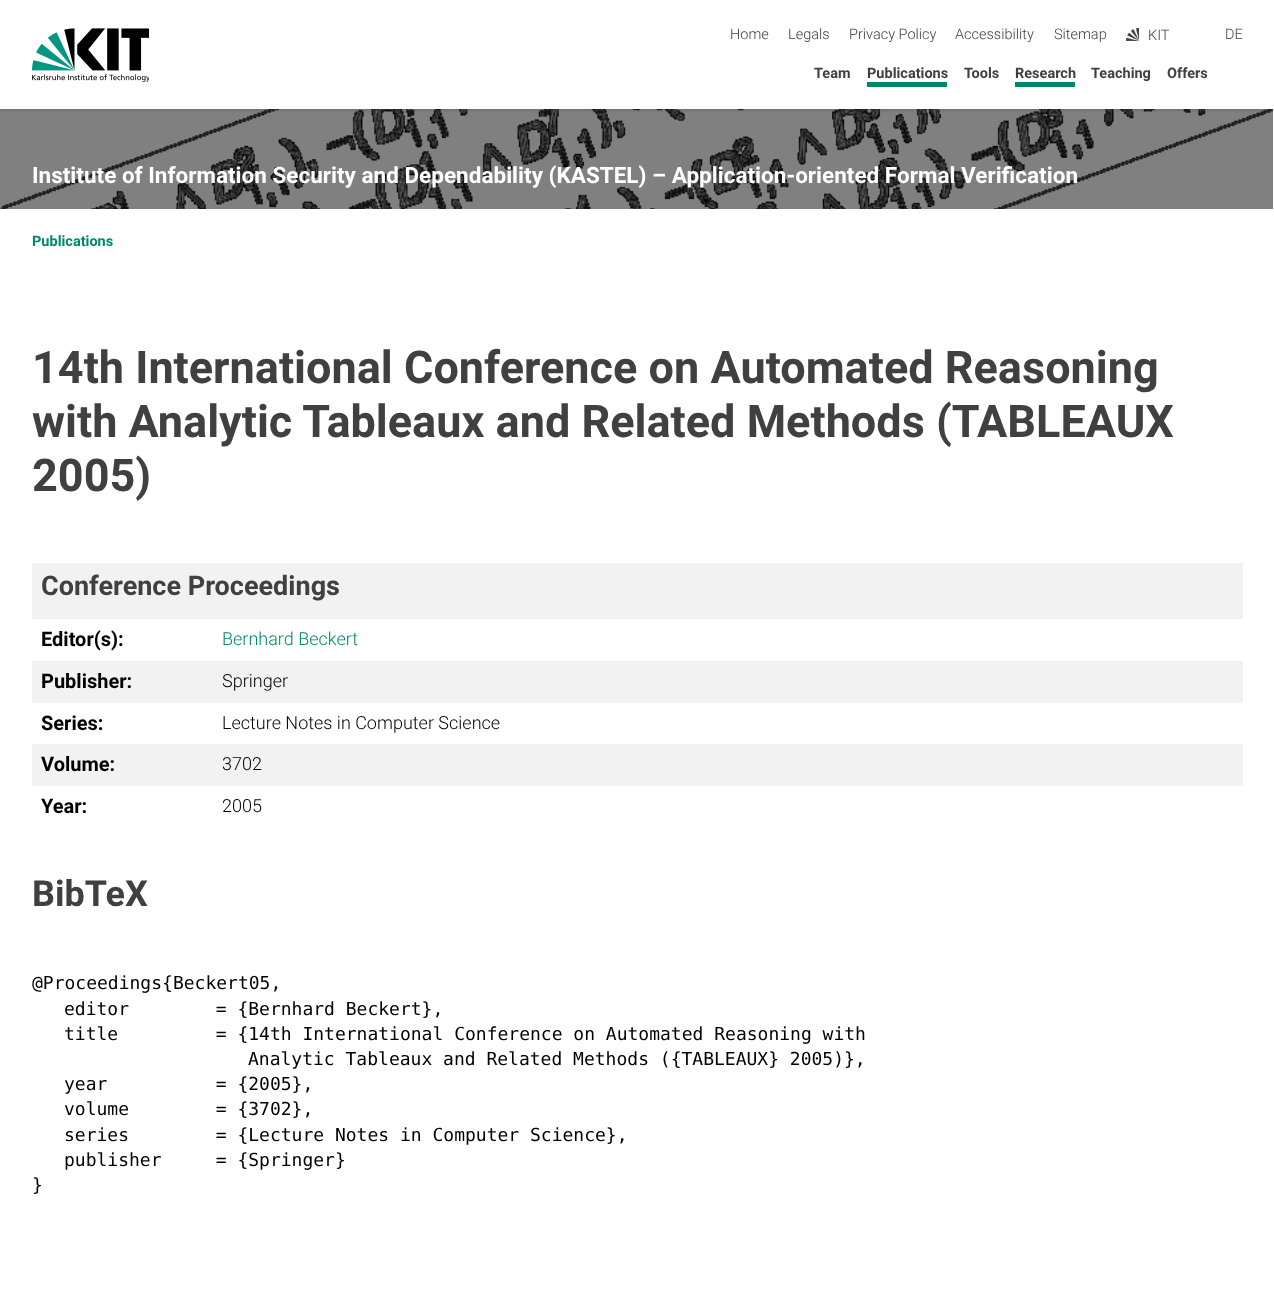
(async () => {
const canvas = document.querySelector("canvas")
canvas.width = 1274
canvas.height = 1302
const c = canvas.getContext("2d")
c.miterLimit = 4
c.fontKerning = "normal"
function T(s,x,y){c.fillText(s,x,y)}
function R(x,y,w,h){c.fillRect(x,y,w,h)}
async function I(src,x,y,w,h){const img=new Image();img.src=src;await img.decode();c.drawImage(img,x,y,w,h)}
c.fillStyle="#fff"
R(0,0,1274,1302)
await I("3.png",0,109,1273,100)
c.save()
c.beginPath()
c.rect(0,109,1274,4)
c.clip()
c.fillStyle="#40404080"
c.filter="blur(2.5px)"
c.beginPath()
c.rect(0,0,1274,109)
c.fill()
c.filter="none"
c.restore()
await I("1.png",32,28,117,54)
c.font="300 14.5px Roboto"
c.fillStyle="#404040"
T("Home",730,39)
T("Legals",788,39)
T("Privacy Policy",849,39)
T("Accessibility",955,39)
T("Sitemap",1054,39)
await I("2.png",1126,28,13,13)
T("KIT",1148,40)
T("DE",1225,39)
c.font="bold 14.5px Roboto"
T("Team",814,78)
T("Publications",867,78)
c.fillStyle="#00876c"
R(867,82,80,5)
c.fillStyle="#404040"
T("Tools",964,78)
T("Research",1015,78)
c.fillStyle="#00876c"
R(1015,82,60,5)
c.fillStyle="#404040"
T("Teaching",1091,78)
T("Offers",1167,78)
c.font="bold 22.5px Roboto"
c.fillStyle="#fff"
T("Institute of Information Security and Dependability (KASTEL) – Application-oriented Formal Verification",32,183)
c.font="bold 14.5px Roboto"
c.fillStyle="#00876c"
T("Publications",32,246)
c.font="bold 45px Roboto"
c.fillStyle="#404040"
T("14th International Conference on Automated Reasoning",32,383)
T("with Analytic Tableaux and Related Methods (TABLEAUX",32,437)
T("2005)",32,491)
c.fillStyle="#f2f2f2"
R(32,563,1211,56)
c.font="bold 27px Roboto"
c.fillStyle="#404040"
T("Conference Proceedings",41,595)
c.font="bold 20px Roboto"
c.fillStyle="#000"
T("Editor(s):",41,646)
c.font="300 18px Roboto"
c.fillStyle="#00876c"
T("Bernhard Beckert",222,645)
c.fillStyle="#f2f2f2"
R(32,661,1211,42)
c.font="bold 20px Roboto"
c.fillStyle="#000"
T("Publisher:",41,688)
c.font="300 18px Roboto"
T("Springer",222,687)
c.font="bold 20px Roboto"
T("Series:",41,730)
c.font="300 18px Roboto"
T("Lecture Notes in Computer Science",222,729)
c.fillStyle="#f2f2f2"
R(32,744,1211,42)
c.font="bold 20px Roboto"
c.fillStyle="#000"
T("Volume:",41,771)
c.font="300 18px Roboto"
T("3702",222,770)
c.font="bold 20px Roboto"
T("Year:",41,813)
c.font="300 18px Roboto"
T("2005",222,812)
c.font="bold 36px Roboto"
c.fillStyle="#404040"
T("BibTeX",32,906)
c.save()
c.beginPath()
c.rect(32,970,1211,227)
c.clip()
c.font="18px DejaVu Sans Mono"
c.fillStyle="#000"
T("@Proceedings{Beckert05,",32,989)
c.restore()
c.font="18px DejaVu Sans Mono"
c.fillStyle="#000"
T("editor        = {Bernhard Beckert},",64,1015)
T("title         = {14th International Conference on Automated Reasoning with",64,1040)
T("Analytic Tableaux and Related Methods ({TABLEAUX} 2005)},",248,1065)
T("year          = {2005},",64,1090)
T("volume        = {3702},",64,1115)
T("series        = {Lecture Notes in Computer Science},",64,1141)
T("publisher     = {Springer}",64,1166)
T("}",32,1191)
})()
